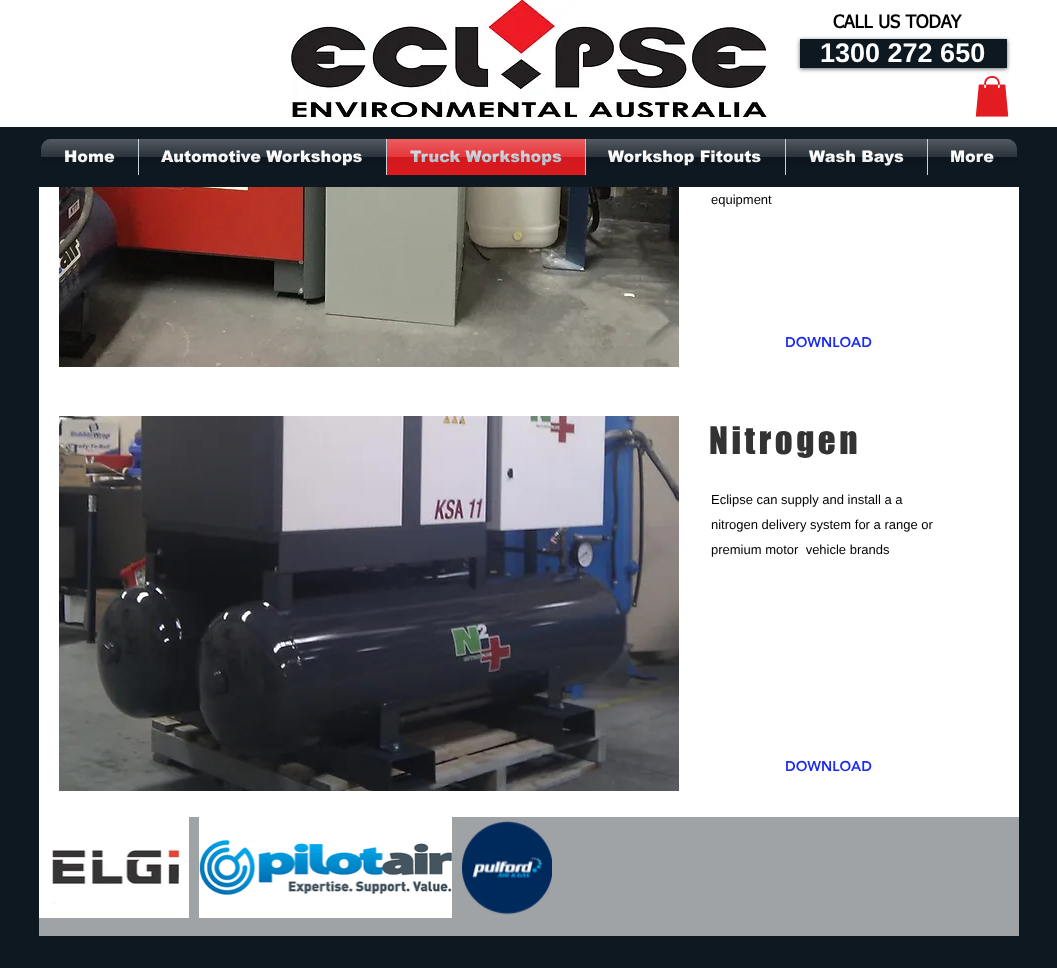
(async () => {
const canvas = document.querySelector("canvas")
canvas.width = 1057
canvas.height = 968
const c = canvas.getContext("2d")
c.miterLimit = 4
c.fontKerning = "normal"
function T(s,x,y){c.fillText(s,x,y)}
function R(x,y,w,h){c.fillRect(x,y,w,h)}
async function I(src,x,y,w,h){const img=new Image();img.src=src;await img.decode();c.drawImage(img,x,y,w,h)}
c.fillStyle="#0e1821"
R(0,0,1057,968)
c.fillStyle="#fff"
R(0,0,1057,127)
await I("1.png",291,0,476,117)
c.font="bold 18px tahoma"
c.fillStyle="#000"
T("CALL US TODAY",833,28)
c.fillStyle="#00000099"
c.filter="blur(2px)"
c.beginPath()
c.rect(800,40,207,29)
c.fill()
c.filter="none"
c.fillStyle="#0e1821"
R(800,39,207,29)
c.font="bold 27px Liberation Sans"
c.fillStyle="#fff"
T("1300 272 650",820,62)
await I("2.png",975,76,34,41)
await I("3.png",41,139,976,10)
c.fillStyle="#0e1821"
c.beginPath()
c.roundRect(41,139,97,36,[10,0,0,10])
c.fill()
c.font="900 16px arial"
c.fillStyle="#fff"
T("Home",64,162)
await I("4.png",41,139,97,24)
c.fillStyle="#0e1821"
R(139,139,247,10)
c.fillStyle="#c5d0d9"
R(138,139,1,36)
c.fillStyle="#fff"
T("Automotive Workshops",161,162)
await I("5.png",139,139,247,26)
c.fillStyle="#e21c21"
R(387,139,198,36)
c.fillStyle="#c5d0d9"
R(386,139,1,36)
T("Truck Workshops",410,162)
await I("6.png",387,139,198,36)
c.fillStyle="#0e1821"
R(586,139,199,10)
c.fillStyle="#c5d0d9"
R(585,139,1,36)
c.fillStyle="#fff"
T("Workshop Fitouts",608,162)
await I("7.png",586,139,199,26)
c.fillStyle="#0e1821"
R(786,139,141,10)
c.fillStyle="#c5d0d9"
R(785,139,1,36)
c.fillStyle="#fff"
T("Wash Bays",809,162)
await I("8.png",786,139,141,27)
c.fillStyle="#0e1821"
c.beginPath()
c.roundRect(927,139,90,36,[0,10,10,0])
c.fill()
c.fillStyle="#c5d0d9"
R(927,139,1,36)
c.fillStyle="#fff"
T("More",950,162)
await I("9.png",928,139,89,24)
R(39,187,980,630)
await I("10.png",59,187,620,180)
c.font="13px Liberation Sans"
c.fillStyle="#000"
T("equipment",711,204)
c.font="900 14px 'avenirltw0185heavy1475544'"
c.fillStyle="#1d2cf3"
T("DOWNLOAD",785,347)
await I("11.png",59,416,620,375)
c.letterSpacing="3.5px"
c.font="35px 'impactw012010'"
c.fillStyle="#333"
T("Nitrogen",709,454)
c.letterSpacing="0px"
c.font="13px Liberation Sans"
c.fillStyle="#000"
T("Eclipse can supply and install a a",711,504)
T("nitrogen delivery system for a range or",711,529)
T("premium motor  vehicle brands",711,554)
c.font="900 14px 'avenirltw0185heavy1475544'"
c.fillStyle="#1d2cf3"
T("DOWNLOAD",785,771)
c.fillStyle="#9fa3a6"
R(39,817,980,119)
await I("12.png",39,817,150,101)
await I("13.png",199,817,253,101)
await I("14.png",462,821,90,94)
})()
